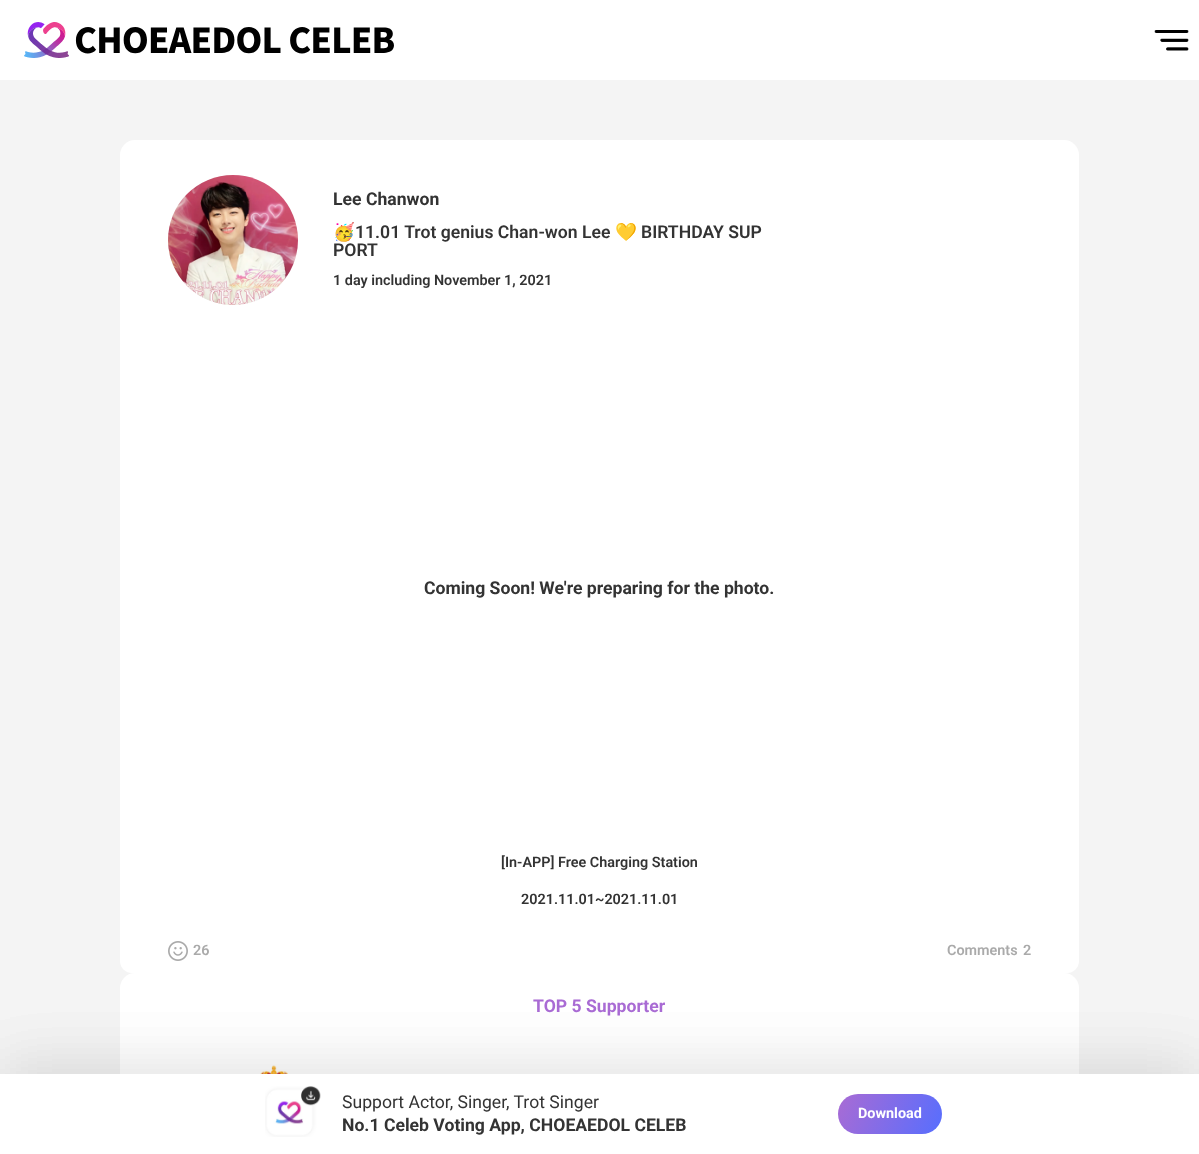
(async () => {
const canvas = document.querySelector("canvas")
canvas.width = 1199
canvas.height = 1154
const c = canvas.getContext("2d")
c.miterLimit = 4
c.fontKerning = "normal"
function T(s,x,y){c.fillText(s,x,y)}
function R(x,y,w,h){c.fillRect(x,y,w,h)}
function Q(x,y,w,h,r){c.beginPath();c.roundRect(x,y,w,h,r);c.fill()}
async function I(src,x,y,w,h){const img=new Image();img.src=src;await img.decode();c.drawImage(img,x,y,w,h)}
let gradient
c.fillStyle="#f4f4f4"
R(0,0,1199,1154)
c.fillStyle="#fff"
R(0,0,1199,80)
await I("1.png",24,22,370,36)
await I("2.png",1154,30,35,21)
c.beginPath()
c.roundRect(120,140,959,821,[15,15,0,0])
c.fill()
c.fillStyle="#ededed"
c.beginPath()
c.arc(233,240,65,0,7)
c.fill()
await I("3.png",168,175,130,130)
c.font="bold 17.6px Roboto"
c.fillStyle="#333"
T("Lee Chanwon",333,205)
c.font="bold 17.6px Noto Color Emoji"
T("🥳",333,238)
c.font="600 17.6px Roboto"
T("11.01 Trot genius Chan-won Lee",355,238)
c.font="bold 17.6px Noto Color Emoji"
T("💛",615,238)
c.font="600 17.6px Roboto"
T("BIRTHDAY SUP",641,238)
T("PORT",333,256)
c.font="600 14.4px Roboto"
T("1 day including November 1, 2021",333,285)
c.font="bold 17.6px Roboto"
T("Coming Soon! We're preparing for the photo.",424,594)
c.font="600 14.4px Roboto"
T("[In-APP] Free Charging Station",501,867)
T("2021.11.01~2021.11.01",521,904)
await I("4.png",168,941,20,20)
c.fillStyle="#aaa"
T("26",193,955)
T("Comments",947,955)
T("2",1023,955)
c.fillStyle="#fff"
c.beginPath()
c.roundRect(120,961,959,12,[0,0,12,12])
c.fill()
Q(120,973,959,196,15)
c.font="bold 17.6px Roboto"
c.fillStyle="#a96bd4"
T("TOP 5 Supporter",533,1012)
await I("5.png",260,1065,28,9)
c.fillStyle="#0000000f"
c.filter="blur(30px)"
c.beginPath()
c.rect(0,1064,1199,80)
c.fill()
c.filter="none"
c.filter="blur(30px)"
c.beginPath()
c.rect(0,1064,1199,80)
c.fill()
c.filter="none"
c.fillStyle="#fff"
R(0,1074,1199,80)
await I("6.png",265,1086,56,51)
c.font="17.6px Roboto"
c.fillStyle="#333"
T("Support Actor, Singer, Trot Singer",342,1108)
c.font="bold 17.6px Roboto"
T("No.1 Celeb Voting App, CHOEAEDOL CELEB",342,1131)
gradient = c.createLinearGradient(839,1092,943,1137)
gradient.addColorStop(0,"#a96bd4")
gradient.addColorStop(1,"#556eff")
c.fillStyle = gradient
Q(838,1094,104,40,20)
c.font="bold 14.4px Roboto"
c.fillStyle="#fff"
T("Download",858,1118)
})()
